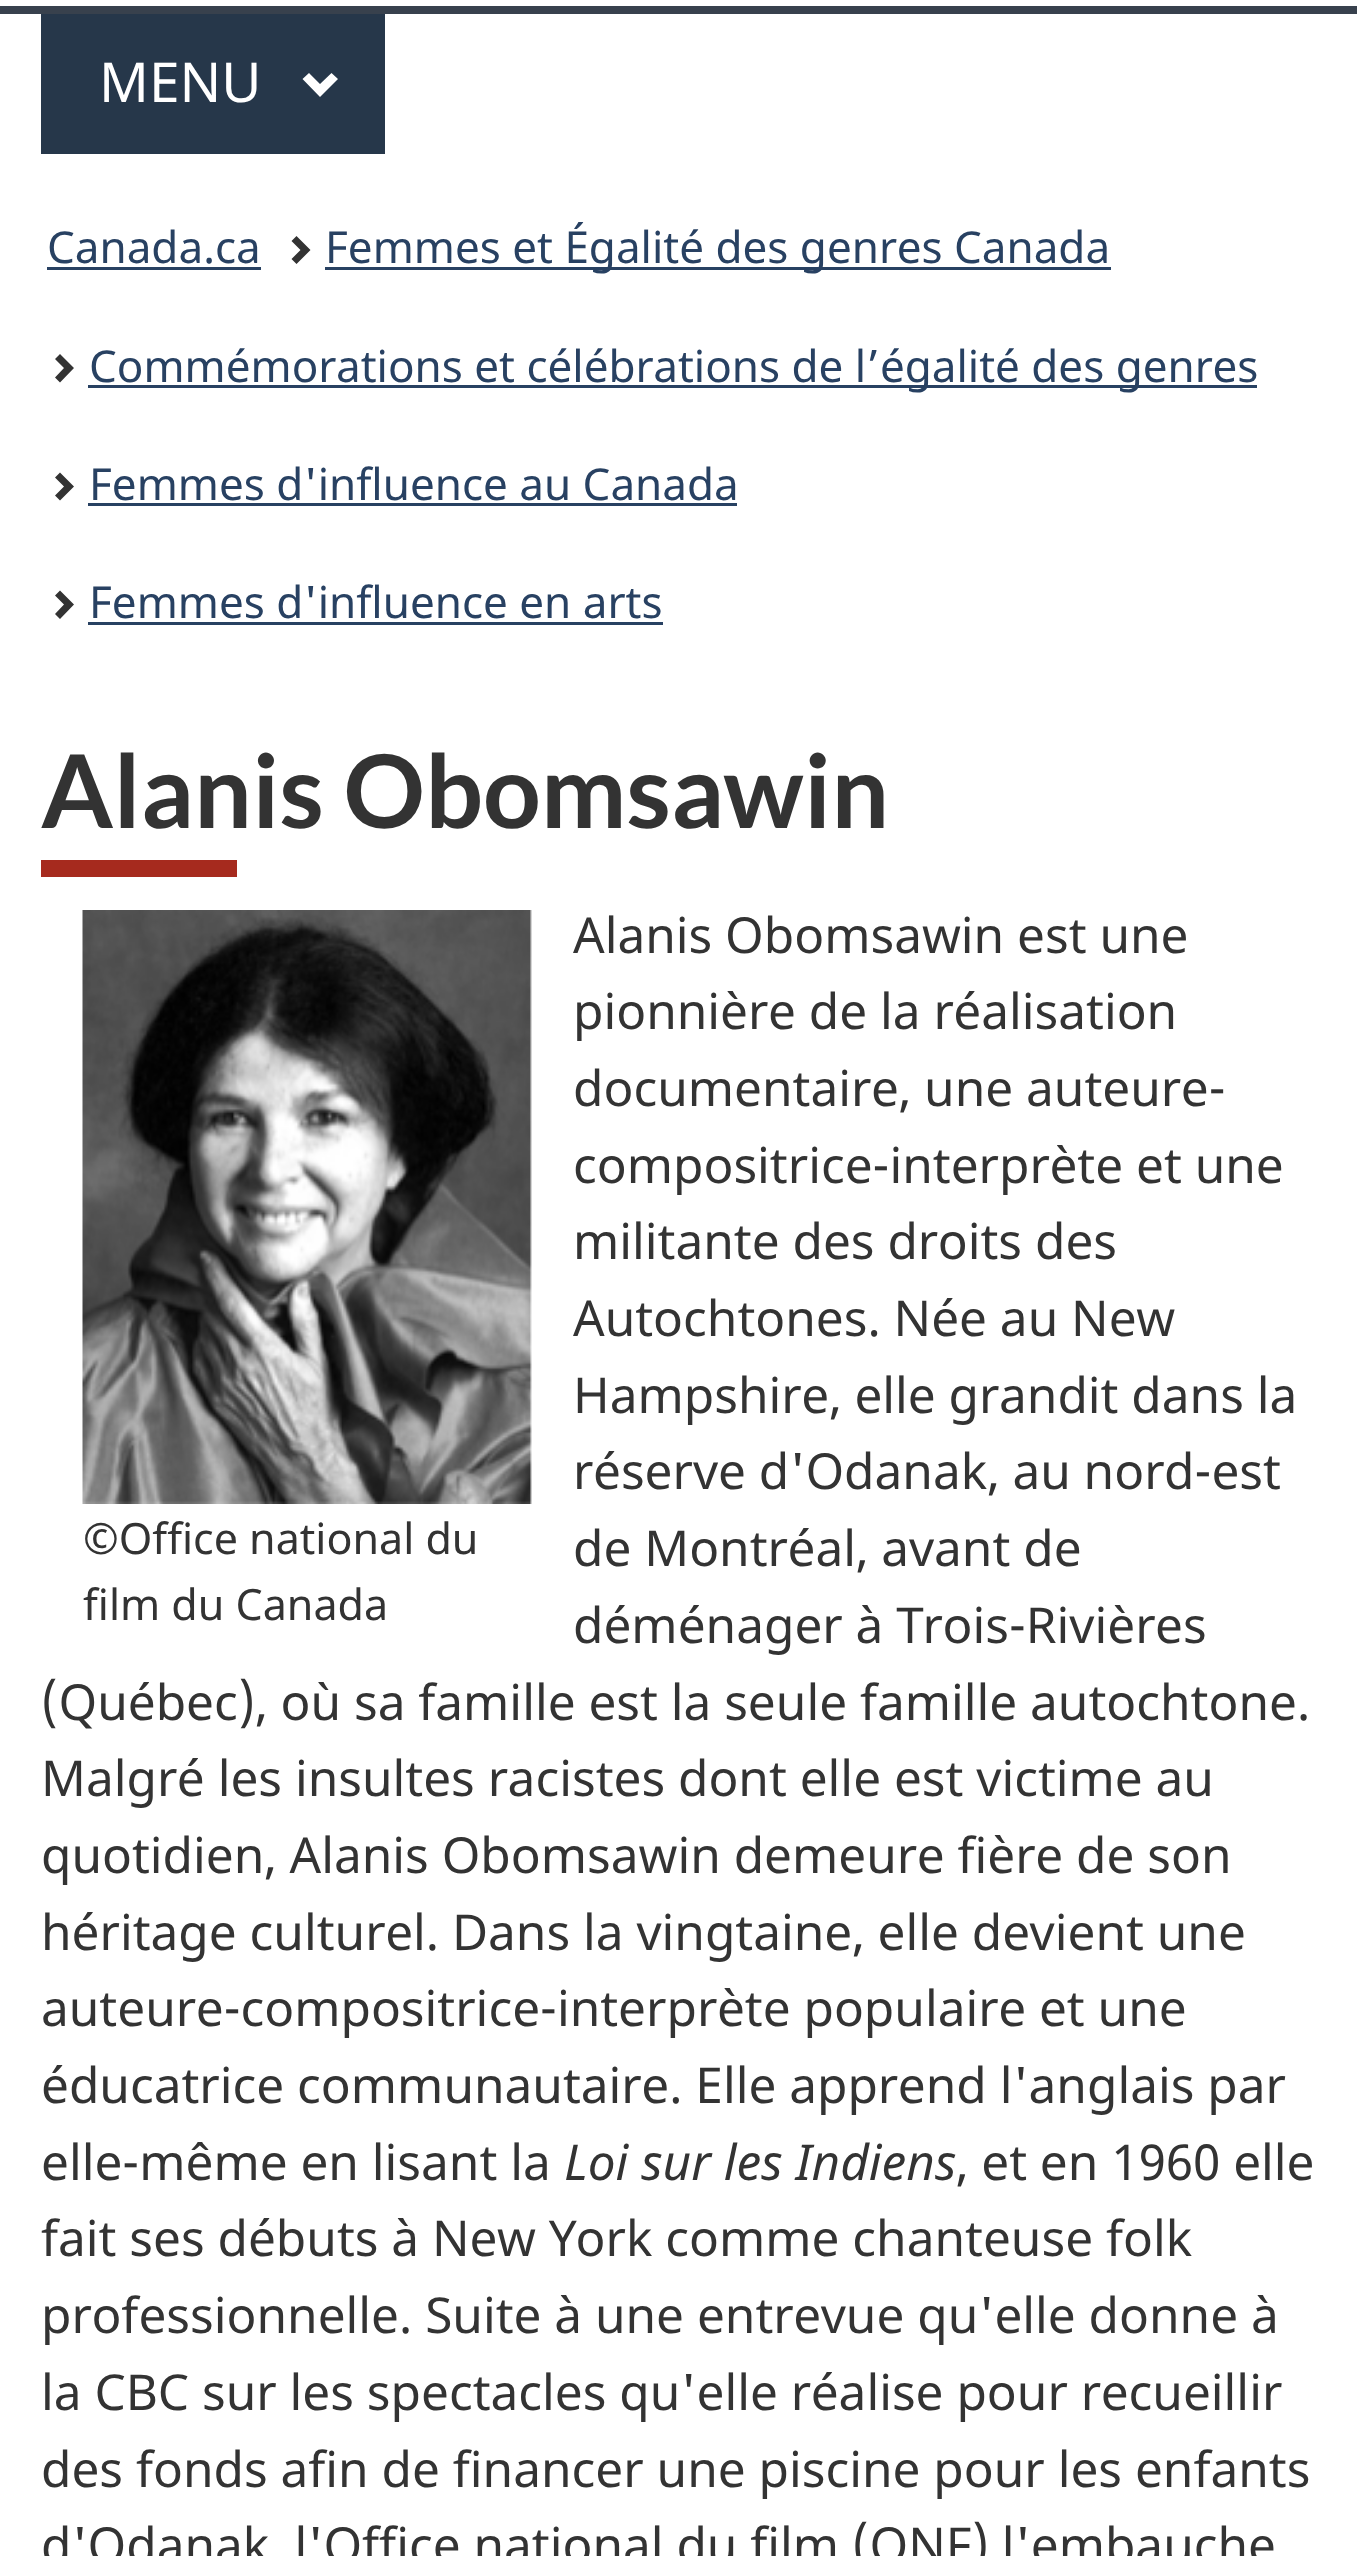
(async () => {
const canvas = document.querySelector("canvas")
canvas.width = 1357
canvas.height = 2556
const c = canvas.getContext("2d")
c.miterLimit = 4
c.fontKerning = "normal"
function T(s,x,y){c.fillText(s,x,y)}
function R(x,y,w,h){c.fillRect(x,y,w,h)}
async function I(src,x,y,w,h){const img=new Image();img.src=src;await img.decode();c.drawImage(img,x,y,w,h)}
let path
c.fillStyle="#fff"
R(0,0,1357,2556)
c.fillStyle="#38414d"
R(0,6,1357,8)
c.fillStyle="#26374a"
R(41,14,344,140)
c.font="55px Noto Sans"
c.fillStyle="#fff"
T("MENU",99,102)
path = new Path2D("M338 79l-18 18l-17.5-18l6.5-6l11 11l11.5-11z")
c.fill(path)
c.font="44px Noto Sans"
c.fillStyle="#284162"
T("Canada.ca",47,263)
R(47,267,214,3)
c.fillStyle="#333"
path = new Path2D("M310.5 250l-14 14l-5-5l9-9l-9-9l5-5z")
c.fill(path)
c.fillStyle="#284162"
R(325,267,786,3)
T("Femmes et Égalité des genres Canada",325,263)
c.fillStyle="#333"
path = new Path2D("M74 368l-14 14.5l-5-5l9-9.5l-9-9l5-5z")
c.fill(path)
c.fillStyle="#284162"
R(88,385,1169,3)
T("Commémorations et célébrations de l’égalité des genres",89,382)
c.fillStyle="#333"
path = new Path2D("M74 486.5l-14 14l-5-5l9-9l-9-9l5-5z")
c.fill(path)
c.fillStyle="#284162"
T("Femmes d'influence au Canada",89,500)
R(88,503,649,3)
c.fillStyle="#333"
path = new Path2D("M74 604.5l-14 14.5l-5-5l9-9.5l-9-9l5-5z")
c.fill(path)
c.fillStyle="#284162"
T("Femmes d'influence en arts",89,618)
R(88,622,575,3)
c.fillStyle="#a62a1e"
R(41,860,196,17)
c.font="bold 101.75px Lato"
c.fillStyle="#333"
T("Alanis Obomsawin",41,828)
c.font="49.5px Noto Sans"
T("Alanis Obomsawin est une",573,953)
T("pionnière de la réalisation",573,1029)
T("documentaire, une auteure-",573,1106)
T("compositrice-interprète et une",573,1183)
T("militante des droits des",573,1259)
T("Autochtones. Née au New",573,1336)
T("Hampshire, elle grandit dans la",573,1413)
T("réserve d'Odanak, au nord-est",573,1489)
T("de Montréal, avant de",573,1566)
T("déménager à Trois-Rivières",573,1643)
T("(Québec), où sa famille est la seule famille autochtone.",41,1720)
T("Malgré les insultes racistes dont elle est victime au",41,1796)
T("quotidien, Alanis Obomsawin demeure fière de son",41,1873)
T("héritage culturel. Dans la vingtaine, elle devient une",41,1950)
T("auteure-compositrice-interprète populaire et une",41,2026)
T("éducatrice communautaire. Elle apprend l'anglais par",41,2103)
T("elle-même en lisant la",41,2180)
c.font="italic 49.5px Noto Sans"
T("Loi sur les Indiens",564,2180)
c.font="49.5px Noto Sans"
T(", et en 1960 elle",956,2180)
T("fait ses débuts à New York comme chanteuse folk",41,2256)
T("professionnelle. Suite à une entrevue qu'elle donne à",41,2333)
T("la CBC sur les spectacles qu'elle réalise pour recueillir",41,2410)
T("des fonds afin de financer une piscine pour les enfants",41,2487)
T("d'Odanak, l'Office national du film (ONF) l'embauche",41,2563)
await I("1.png",82,910,450,594)
c.font="43px Noto Sans"
T("©Office national du",83,1554)
T("film du Canada",83,1620)
})()
